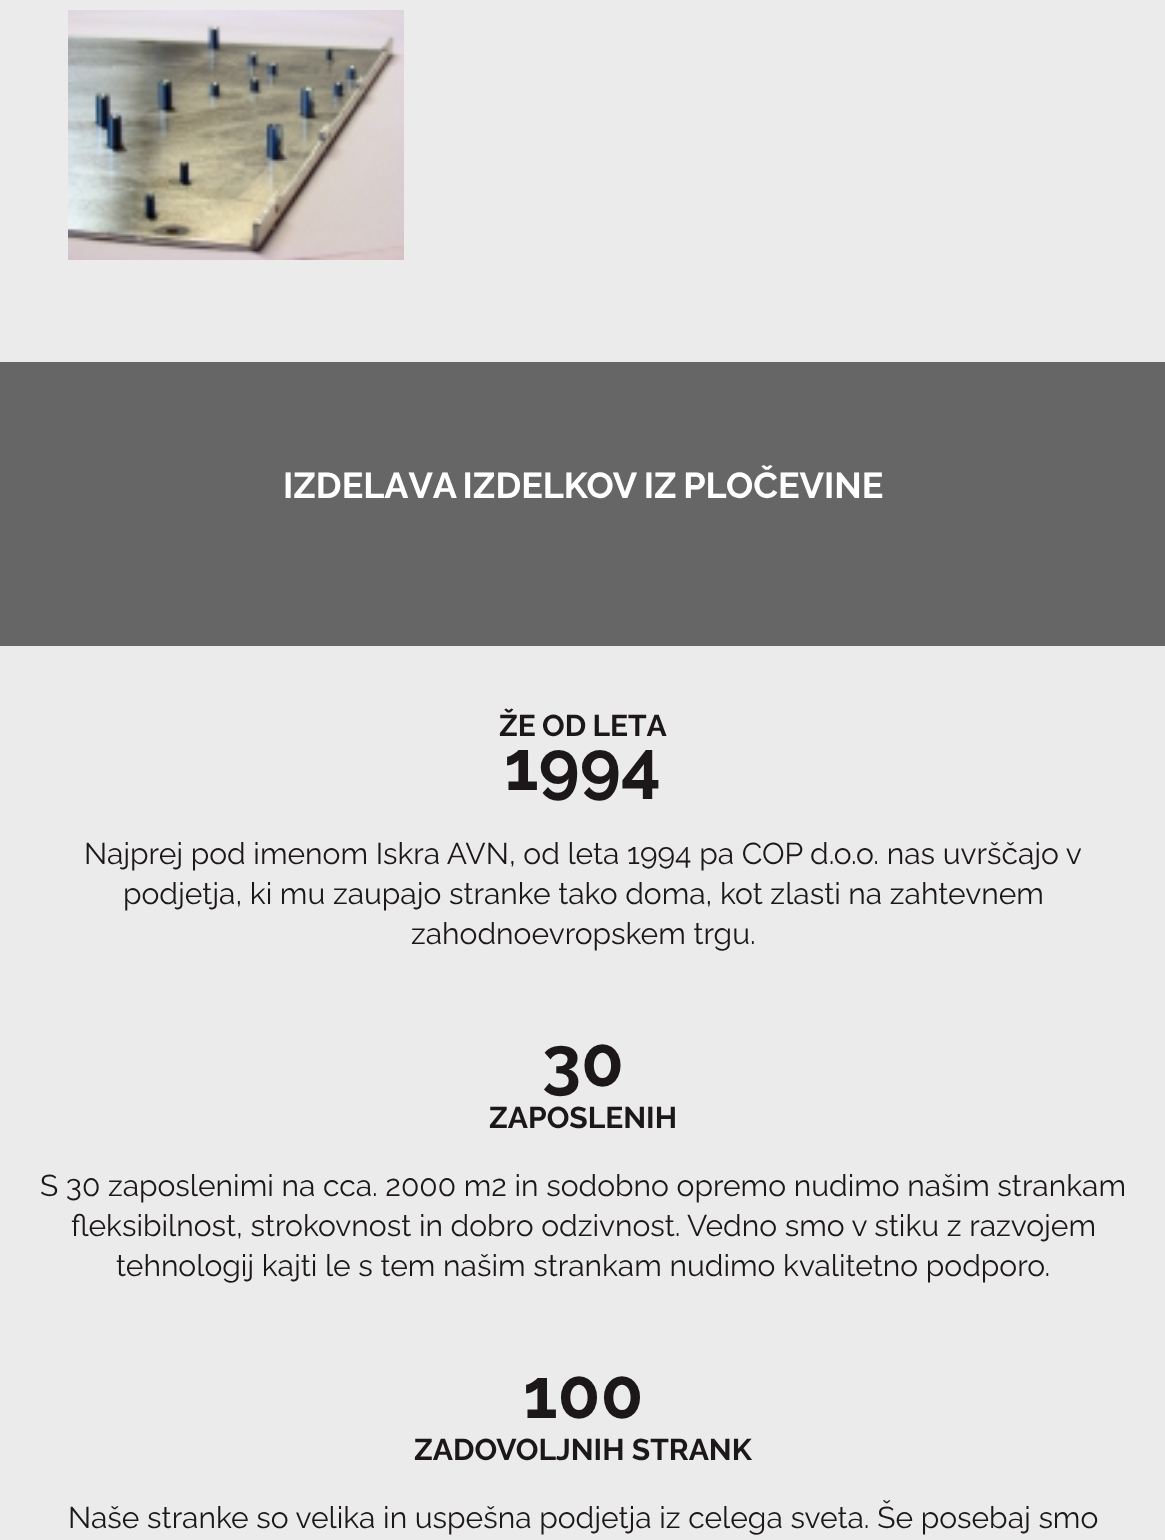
(async () => {
const canvas = document.querySelector("canvas")
canvas.width = 1165
canvas.height = 1540
const c = canvas.getContext("2d")
c.miterLimit = 4
c.fontKerning = "normal"
function T(s,x,y){c.fillText(s,x,y)}
function R(x,y,w,h){c.fillRect(x,y,w,h)}
async function I(src,x,y,w,h){const img=new Image();img.src=src;await img.decode();c.drawImage(img,x,y,w,h)}
c.fillStyle="#ebebeb"
R(0,0,1165,1540)
await I("1.png",68,10,336,250)
c.fillStyle="#666"
R(0,362,1165,284)
c.wordSpacing="-2px"
c.font="bold 36px Raleway"
c.fillStyle="#fff"
T("IZDELAVA IZDELKOV IZ PLOČEVINE",283,498)
c.wordSpacing="-1px"
c.font="bold 30px Raleway"
c.fillStyle="#1c1718"
T("ŽE OD LETA",499,736)
c.wordSpacing="0px"
c.font="bold 70px Raleway"
T("1994",504,790)
c.font="30px Raleway"
T("Najprej pod imenom Iskra AVN, od leta 1994 pa COP d.o.o. nas uvrščajo v",84,864)
T("podjetja, ki mu zaupajo stranke tako doma, kot zlasti na zahtevnem",123,904)
T("zahodnoevropskem trgu.",411,944)
c.font="bold 70px Raleway"
T("30",542,1086)
c.font="bold 30px Raleway"
T("ZAPOSLENIH",489,1128)
c.font="30px Raleway"
T("S 30 zaposlenimi na cca. 2000 m2 in sodobno opremo nudimo našim strankam",40,1196)
T("fleksibilnost, strokovnost in dobro odzivnost. Vedno smo v stiku z razvojem",71,1236)
T("tehnologij kajti le s tem našim strankam nudimo kvalitetno podporo.",116,1276)
c.font="bold 70px Raleway"
T("100",523,1418)
c.font="bold 30px Raleway"
T("ZADOVOLJNIH STRANK",414,1460)
c.font="30px Raleway"
T("Naše stranke so velika in uspešna podjetja iz celega sveta. Še posebaj smo",68,1528)
})()
